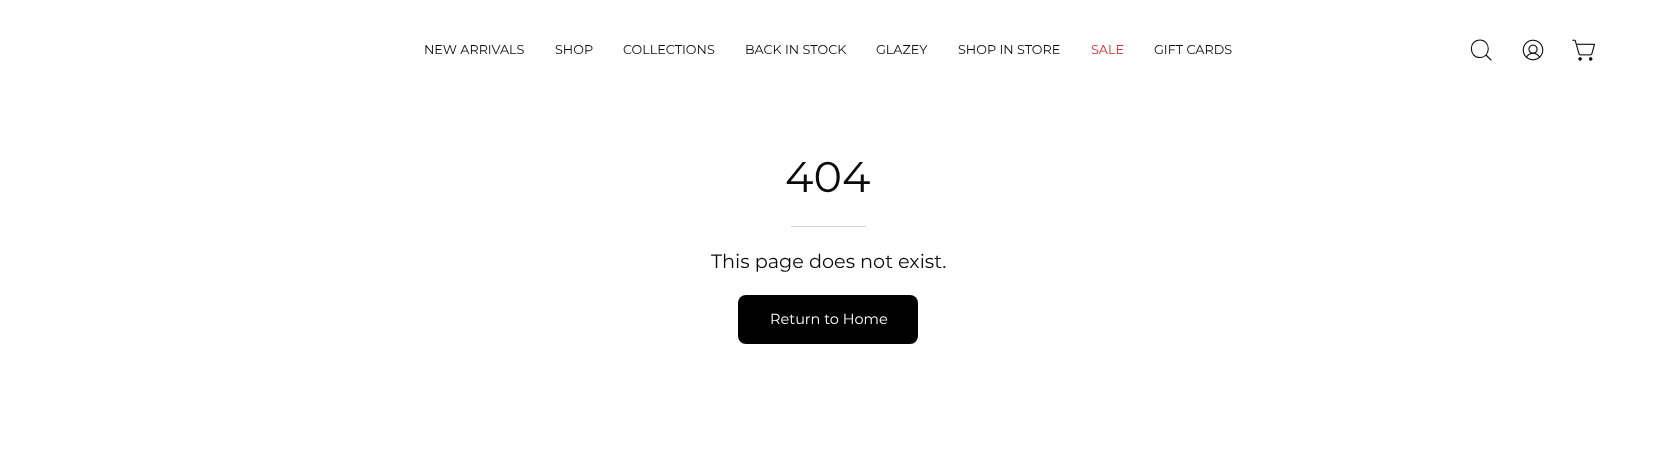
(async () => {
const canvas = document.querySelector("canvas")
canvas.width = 1656
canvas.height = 458
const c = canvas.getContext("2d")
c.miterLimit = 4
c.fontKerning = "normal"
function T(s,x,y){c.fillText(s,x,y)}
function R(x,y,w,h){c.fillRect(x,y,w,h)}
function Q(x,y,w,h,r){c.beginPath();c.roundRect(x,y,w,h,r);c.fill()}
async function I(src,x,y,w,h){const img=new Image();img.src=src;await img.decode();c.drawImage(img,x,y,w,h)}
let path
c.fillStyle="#fff"
R(0,0,1656,458)
c.font="12.75px Montserrat"
c.fillStyle="#0b0b0b"
T("NEW ARRIVALS",424,54)
T("SHOP",555,54)
T("COLLECTIONS",623,54)
T("BACK IN STOCK",745,54)
T("GLAZEY",876,54)
T("SHOP IN STORE",958,54)
c.fillStyle="#d02e2e"
T("SALE",1091,54)
c.fillStyle="#0b0b0b"
T("GIFT CARDS",1154,54)
path = new Path2D("M1480 57.5c11 0 11-17.5 0-17.5c-11.5 0-11.5 17.5 0 17.5zm6-2.5l5 5")
c.strokeStyle="#0b0b0b"
c.lineWidth=1.1
c.lineCap="round"
c.lineJoin="round"
c.stroke(path)
await I("1.png",1522,39,22,22)
await I("2.png",1572,39,23,22)
c.font="43px Montserrat"
T("404",785,192)
c.fillStyle="#d3d3d3"
R(791,226,75,1)
c.font="19.25px Montserrat"
c.fillStyle="#0b0b0b"
T("This page does not exist.",711,268)
c.fillStyle="#000"
Q(738,295,180,49,8)
c.font="14.5px Montserrat"
c.fillStyle="#fff"
T("Return to Home",770,324)
})()
